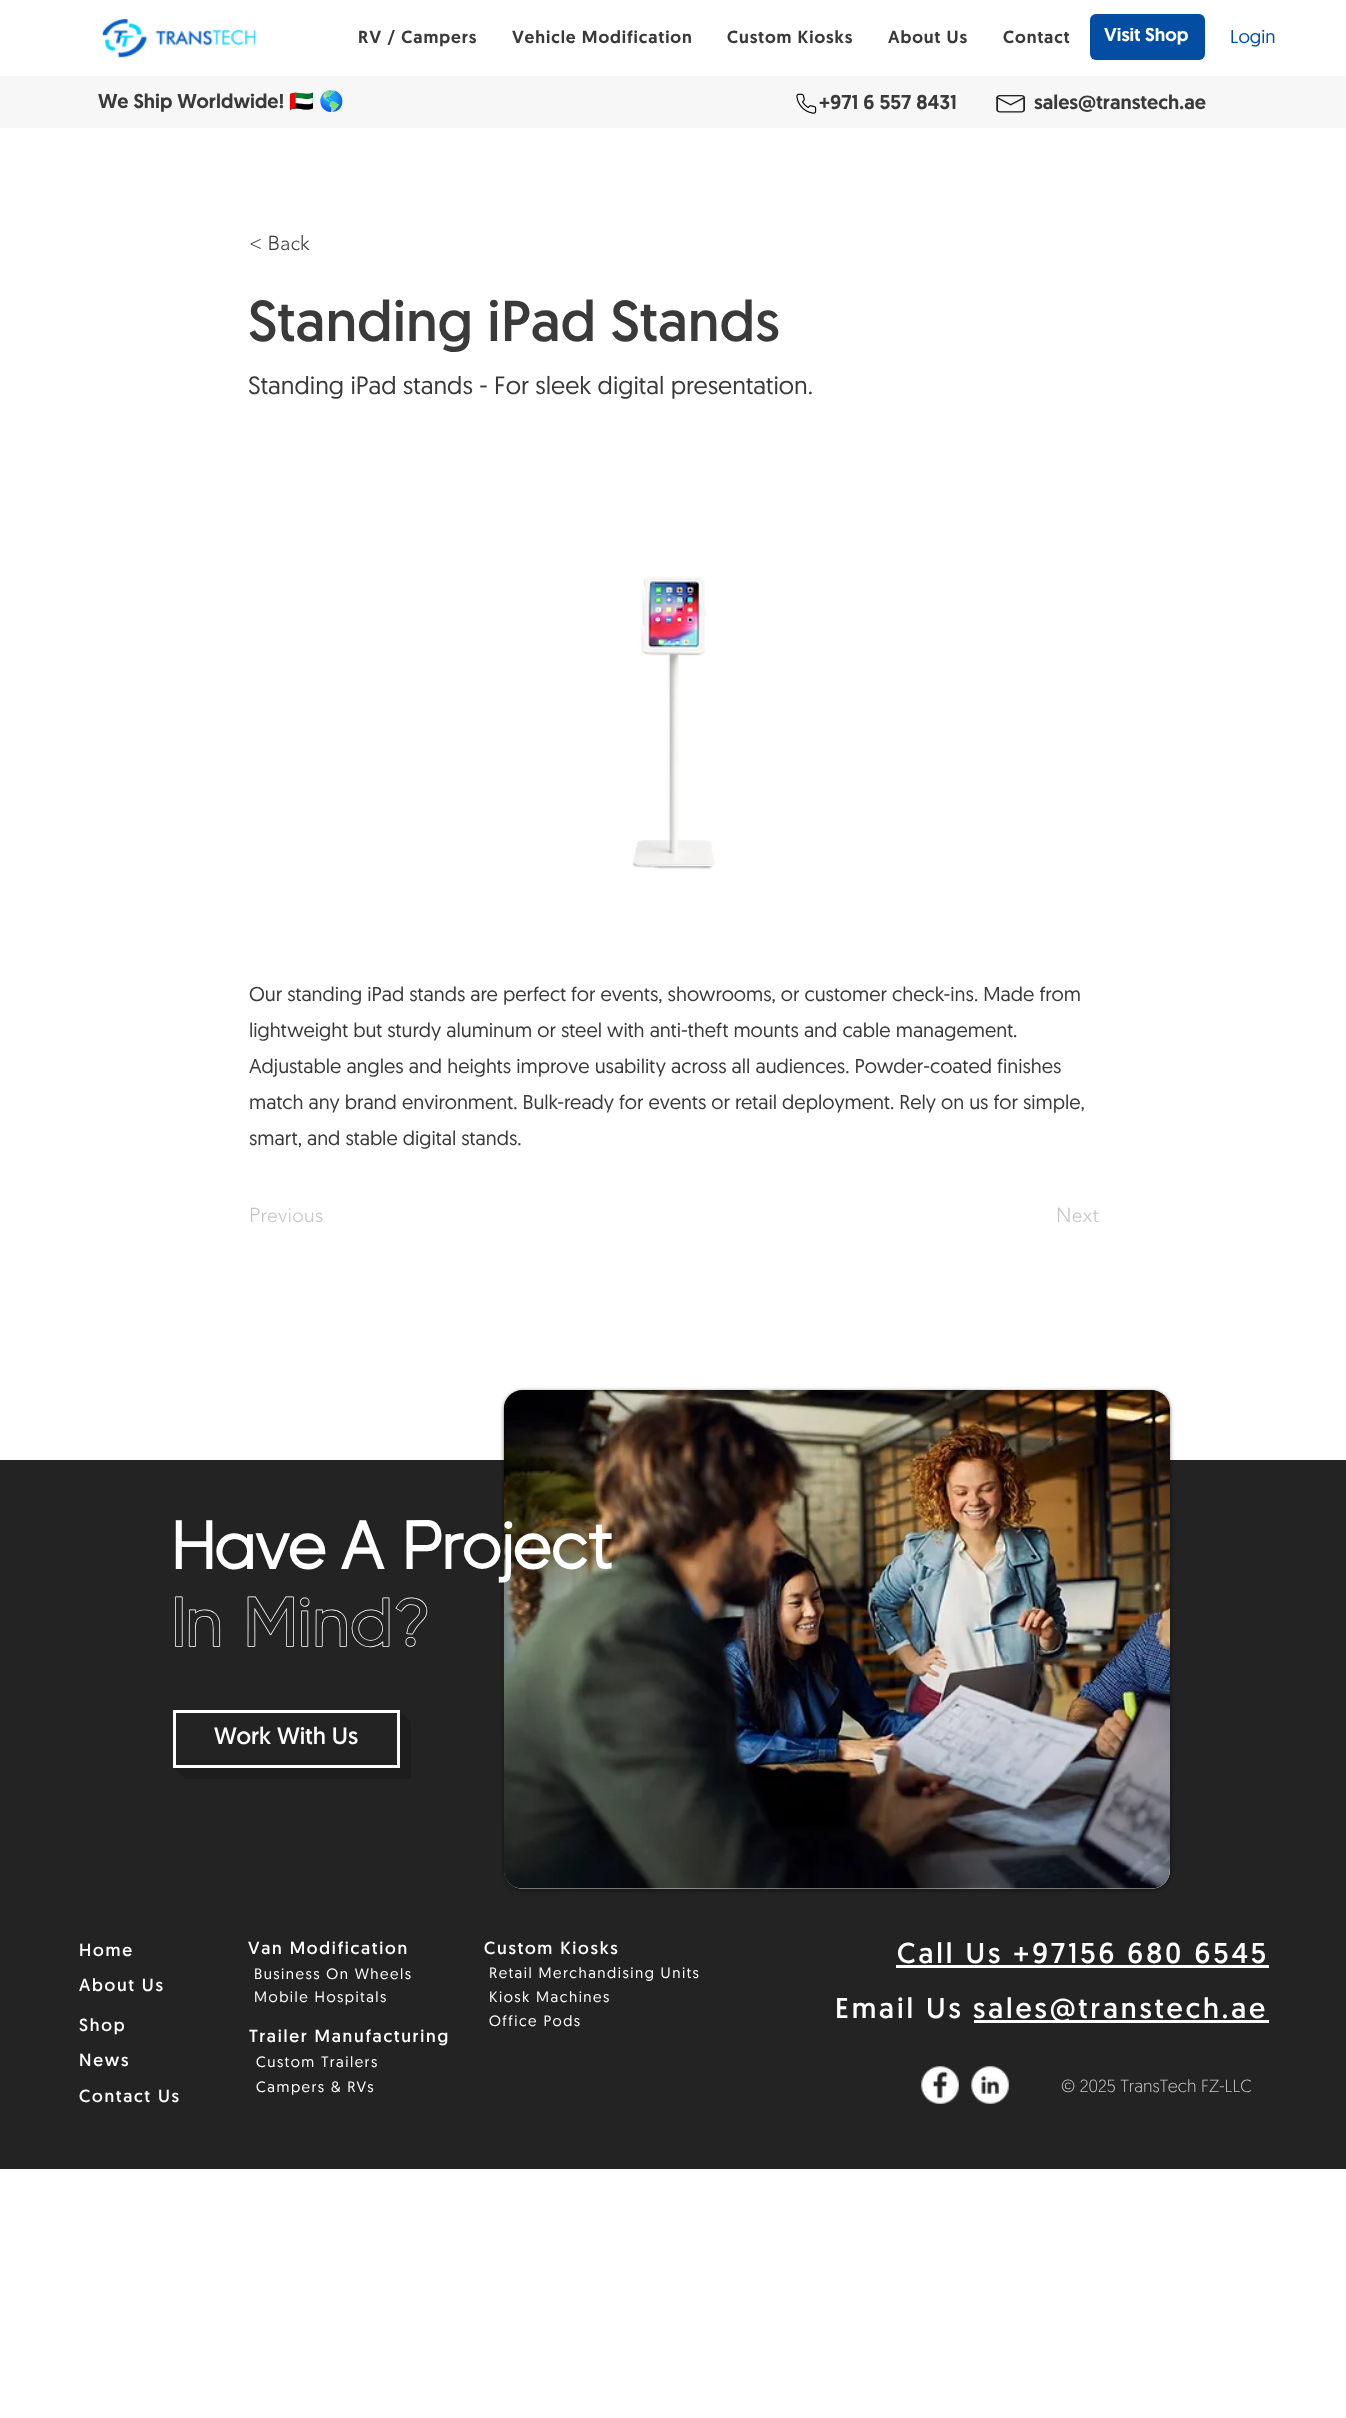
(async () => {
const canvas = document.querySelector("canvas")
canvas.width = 1346
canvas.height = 2418
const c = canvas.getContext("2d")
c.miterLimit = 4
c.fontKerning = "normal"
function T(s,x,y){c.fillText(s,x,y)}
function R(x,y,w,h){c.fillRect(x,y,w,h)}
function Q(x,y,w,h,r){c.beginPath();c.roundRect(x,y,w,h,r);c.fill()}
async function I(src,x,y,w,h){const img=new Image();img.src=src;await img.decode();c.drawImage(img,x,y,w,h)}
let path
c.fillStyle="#fff"
R(0,0,1346,2418)
await I("1.png",102,18,153,40)
c.letterSpacing="0.9px"
c.font="500 17.5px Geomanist"
c.fillStyle="#3b3a3a"
T("RV / Campers",358,43)
T("Vehicle Modification",512,43)
T("Custom Kiosks",727,43)
T("About Us",888,43)
T("Contact",1003,43)
c.fillStyle="#034ea2"
Q(1090,14,115,46,6)
c.save()
c.beginPath()
c.rect(1104,28,85,18)
c.clip()
c.letterSpacing="0px"
c.font="500 18.75px Geomanist"
c.fillStyle="#fff"
T("Visit Shop",1104,41)
c.restore()
c.letterSpacing="0px"
c.font="18.75px 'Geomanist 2'"
T("Login",1230,43)
c.fillStyle="#f7f7f7"
R(0,76,1346,52)
c.font="500 20px Geomanist"
c.fillStyle="#3b3a3a"
T("We Ship Worldwide!",98,108)
c.font="20px Noto Color Emoji"
T("🇦🇪",289,108)
T("🌎",319,108)
await I("2.png",796,93,21,21)
c.font="500 20px Geomanist"
T("+971 6 557 8431",819,109)
await I("3.png",996,95,29,18)
T("sales@transtech.ae",1034,109)
c.font="300 20px 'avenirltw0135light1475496'"
T("< Back",249,250)
c.font="57.5px Geomanist"
T("Standing iPad Stands",248,341)
c.font="25px 'Geomanist 2'"
T("Standing iPad stands - For sleek digital presentation.",248,394)
await I("4.png",632,576,83,293)
c.font="20px 'Geomanist 2'"
T("Our standing iPad stands are perfect for events, showrooms, or customer check-ins. Made from",249,1001)
T("lightweight but sturdy aluminum or steel with anti-theft mounts and cable management.",249,1037)
T("Adjustable angles and heights improve usability across all audiences. Powder-coated finishes",249,1073)
T("match any brand environment. Bulk-ready for events or retail deployment. Rely on us for simple,",249,1109)
T("smart, and stable digital stands.",249,1145)
c.font="300 20px 'avenirltw0135light1475496'"
c.fillStyle="#c7c7c7"
T("Previous",249,1222)
T("Next",1056,1222)
c.fillStyle="#242323"
R(0,1460,1346,709)
c.fillStyle="#00000080"
c.filter="blur(2px)"
c.beginPath()
c.roundRect(504,1391,666,499,19)
c.fill()
c.filter="none"
c.fillStyle="#fff"
Q(504,1390,666,499,19)
await I("5.png",503,1390,667,499)
c.letterSpacing="-3.6px"
c.font="bold 72.5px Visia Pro"
T("Have A Project",172,1569)
c.letterSpacing="0px"
c.font="bold 72.5px 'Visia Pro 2'"
T("In Mind?",172,1646)
c.fillStyle="#1e1d1d"
path = new Path2D("M184 1768v11h227v-58h-11v47z")
c.fill(path)
path = new Path2D("M181 1768v8h228v-57h-9v49z")
c.fill(path)
path = new Path2D("M179 1768v6h227v-58h-6v52z")
c.fill(path)
path = new Path2D("M176 1768v3h228v-57h-4v54z")
c.fill(path)
path = new Path2D("M174 1768v1h227v-58h-1v57z")
c.fill(path)
c.strokeStyle="#fff"
c.lineWidth=3
c.strokeRect(174.5,1711.5,224,55)
c.font="23.75px Geomanist"
c.fillStyle="#fff"
T("Work With Us",214,1744)
c.letterSpacing="1.75px"
c.font="17.5px Geomanist"
T("Home",79,1956)
T("Van Modification",248,1954)
c.letterSpacing="1.5px"
c.font="15px 'Geomanist 2'"
T("Business On Wheels",254,1979)
T("Mobile Hospitals",254,2002)
c.letterSpacing="1.75px"
c.font="17.5px Geomanist"
T("Custom Kiosks",484,1954)
c.letterSpacing="1.5px"
c.font="15px 'Geomanist 2'"
T("Retail Merchandising Units",489,1978)
T("Kiosk Machines",489,2002)
T("Office Pods",489,2026)
c.letterSpacing="2.9px"
c.font="28.75px Geomanist"
T("Call Us +97156 680 6545",897,1963)
R(896,1965,373,3)
c.letterSpacing="1.75px"
c.font="17.5px Geomanist"
T("About Us",79,1991)
c.letterSpacing="2.9px"
c.font="28.75px Geomanist"
T("Email Us",835,2018)
R(974,2020,295,3)
T("sales@transtech.ae",973,2018)
c.letterSpacing="1.75px"
c.font="17.5px Geomanist"
T("Shop",79,2031)
T("News",79,2066)
T("Trailer Manufacturing",249,2042)
c.letterSpacing="1.5px"
c.font="15px 'Geomanist 2'"
T("Custom Trailers",256,2067)
T("Campers & RVs",256,2092)
await I("6.png",921,2066,38,38)
await I("7.png",971,2066,38,38)
c.letterSpacing="0px"
c.font="300 17.5px Geomanist"
c.fillStyle="#c7c7c7"
T("© 2025 TransTech FZ-LLC",1061,2092)
c.letterSpacing="1.75px"
c.font="17.5px Geomanist"
c.fillStyle="#fff"
T("Contact Us",79,2102)
})()
